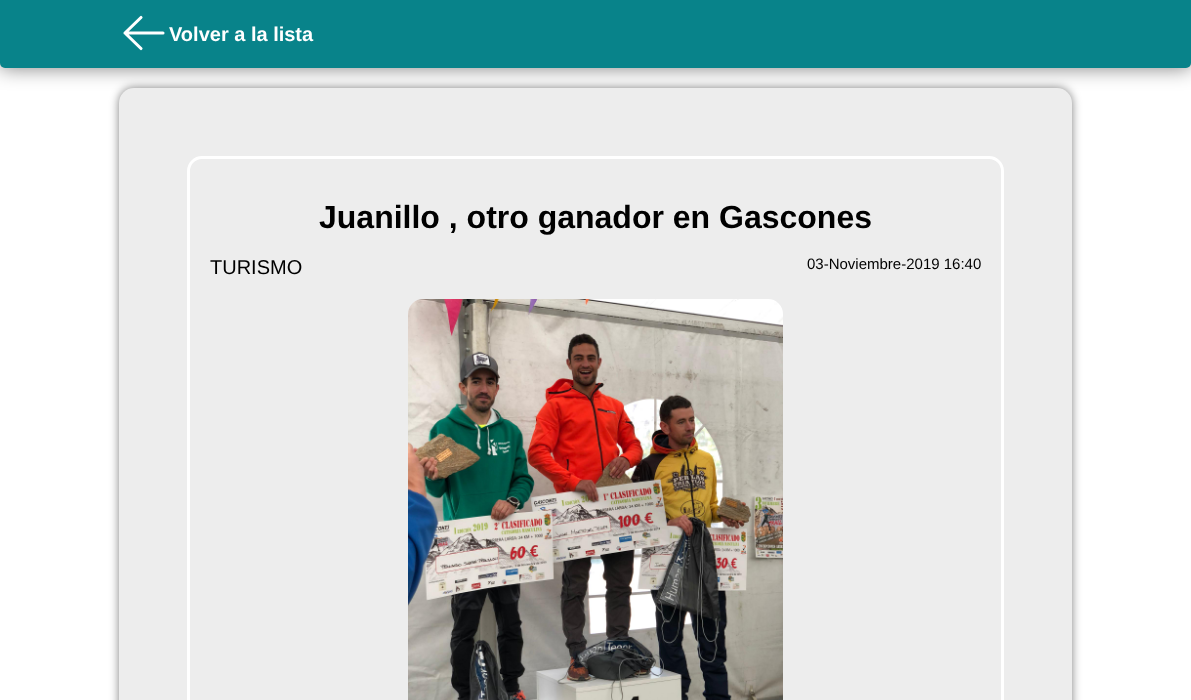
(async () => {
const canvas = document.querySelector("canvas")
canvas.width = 1191
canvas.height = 700
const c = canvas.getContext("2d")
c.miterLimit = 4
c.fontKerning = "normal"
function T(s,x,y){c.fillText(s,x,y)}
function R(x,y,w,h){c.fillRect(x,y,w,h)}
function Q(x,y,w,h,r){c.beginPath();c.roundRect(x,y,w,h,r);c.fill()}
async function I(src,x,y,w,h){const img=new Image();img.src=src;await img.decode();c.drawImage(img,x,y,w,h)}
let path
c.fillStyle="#fff"
R(0,0,1191,700)
c.fillStyle="#00000080"
c.filter="blur(10px)"
c.beginPath()
c.rect(0,0,1191,68)
c.fill()
c.filter="none"
c.fillStyle="#08838a"
c.beginPath()
c.roundRect(0,0,1191,68,[0,0,5,5])
c.fill()
path = new Path2D("M141 48.5l-16-15.5m0 0l16-15.5m-16 15.5h38")
c.strokeStyle="#fff"
c.lineWidth=3.1
c.lineCap="round"
c.lineJoin="round"
c.stroke(path)
c.font="bold 20px Liberation Sans"
c.fillStyle="#fff"
T("Volver a la lista",169,41)
c.fillStyle="#00000080"
c.filter="blur(5px)"
c.beginPath()
c.roundRect(119,88,953,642,15)
c.fill()
c.filter="none"
c.fillStyle="#ededed"
Q(119,88,953,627,15)
c.beginPath()
c.roundRect(188.5,157.5,814,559,13.5)
c.lineWidth=3
c.lineJoin="miter"
c.stroke()
c.font="bold 32px Liberation Sans"
c.fillStyle="#000"
T("Juanillo , otro ganador en Gascones",319,228)
c.font="20px Liberation Sans"
T("TURISMO",210,274)
c.font="15px Liberation Sans"
T("03-Noviembre-2019 16:40",807,269)
await I("1.png",408,299,375,401)
})()
